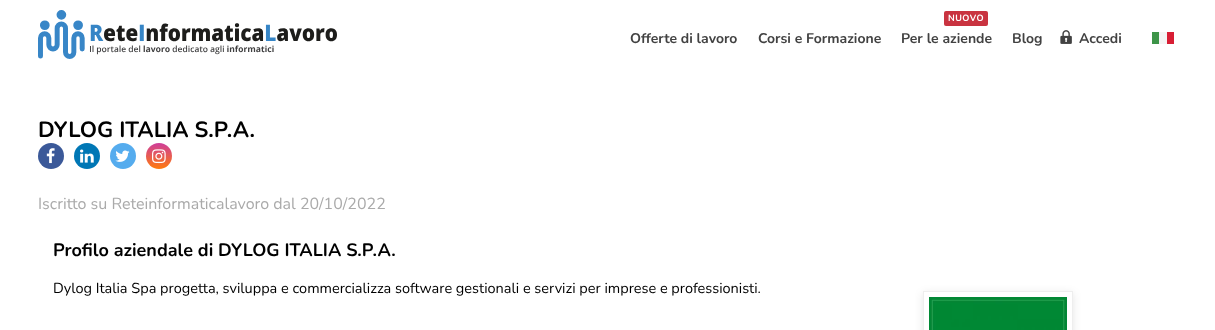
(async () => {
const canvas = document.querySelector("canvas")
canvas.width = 1215
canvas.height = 330
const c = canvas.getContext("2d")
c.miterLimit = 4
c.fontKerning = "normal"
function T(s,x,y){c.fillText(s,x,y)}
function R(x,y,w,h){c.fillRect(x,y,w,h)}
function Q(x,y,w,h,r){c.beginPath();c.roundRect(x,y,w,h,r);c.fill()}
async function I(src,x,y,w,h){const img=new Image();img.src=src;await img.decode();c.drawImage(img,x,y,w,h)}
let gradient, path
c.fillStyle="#fff"
R(0,0,1215,330)
await I("1.png",38,10,299,49)
c.font="bold 14px Nunito"
c.fillStyle="#424242"
T("Offerte di lavoro",630,43)
T("Corsi e Formazione",758,43)
c.fillStyle="#c93340"
Q(944,11,44,15,2)
c.letterSpacing="0.5px"
c.font="bold 9px Nunito"
c.fillStyle="#fff"
T("NUOVO",948,21)
c.letterSpacing="0px"
c.font="bold 14px Nunito"
c.fillStyle="#424242"
T("Per le aziende",901,43)
T("Blog",1012,43)
await I("2.png",1060,30,12,14)
T("Accedi",1079,43)
c.fillStyle="#3d9448"
R(1152,32,7,12)
c.fillStyle="#f4f4f4"
R(1159,32,8,12)
c.fillStyle="#d81e34"
R(1167,32,7,12)
c.font="bold 22px Nunito"
c.fillStyle="#000"
T("DYLOG ITALIA S.P.A.",38,137)
c.fillStyle="#3b5999"
c.beginPath()
c.arc(51,156,13,0,7)
c.fill()
await I("3.png",46,148,9,16)
c.fillStyle="#0077b5"
c.beginPath()
c.arc(87,156,13,0,7)
c.fill()
await I("4.png",80,149,14,14)
c.fillStyle="#55acee"
c.beginPath()
c.arc(123,156,13,0,7)
c.fill()
await I("5.png",115,150,15,12)
gradient = c.createLinearGradient(159,143,159,169)
gradient.addColorStop(0,"#ce3d9b")
gradient.addColorStop(1,"#ff7b0d")
c.fillStyle = gradient
c.beginPath()
c.arc(159,156,13,0,7)
c.fill()
await I("6.png",152,149,14,15)
c.font="16px Nunito"
c.fillStyle="#aaa"
T("Iscritto su Reteinformaticalavoro dal 20/10/2022",38,209)
c.font="bold 18px Nunito"
c.fillStyle="#000"
T("Profilo aziendale di DYLOG ITALIA S.P.A.",53,256)
c.font="14.5px Nunito"
T("Dylog Italia Spa progetta, sviluppa e commercializza software gestionali e servizi per imprese e professionisti.",53,293)
c.save()
path = new Path2D("M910 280h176v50h-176zm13 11h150v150h-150z")
c.clip(path,"evenodd")
c.fillStyle="#0000001a"
c.filter="blur(4px)"
c.beginPath()
c.rect(923,293,150,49)
c.fill()
c.filter="none"
c.restore()
c.strokeStyle="#eee"
c.strokeRect(923.5,291.5,149,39)
await I("7.png",929,297,138,33)
})()
